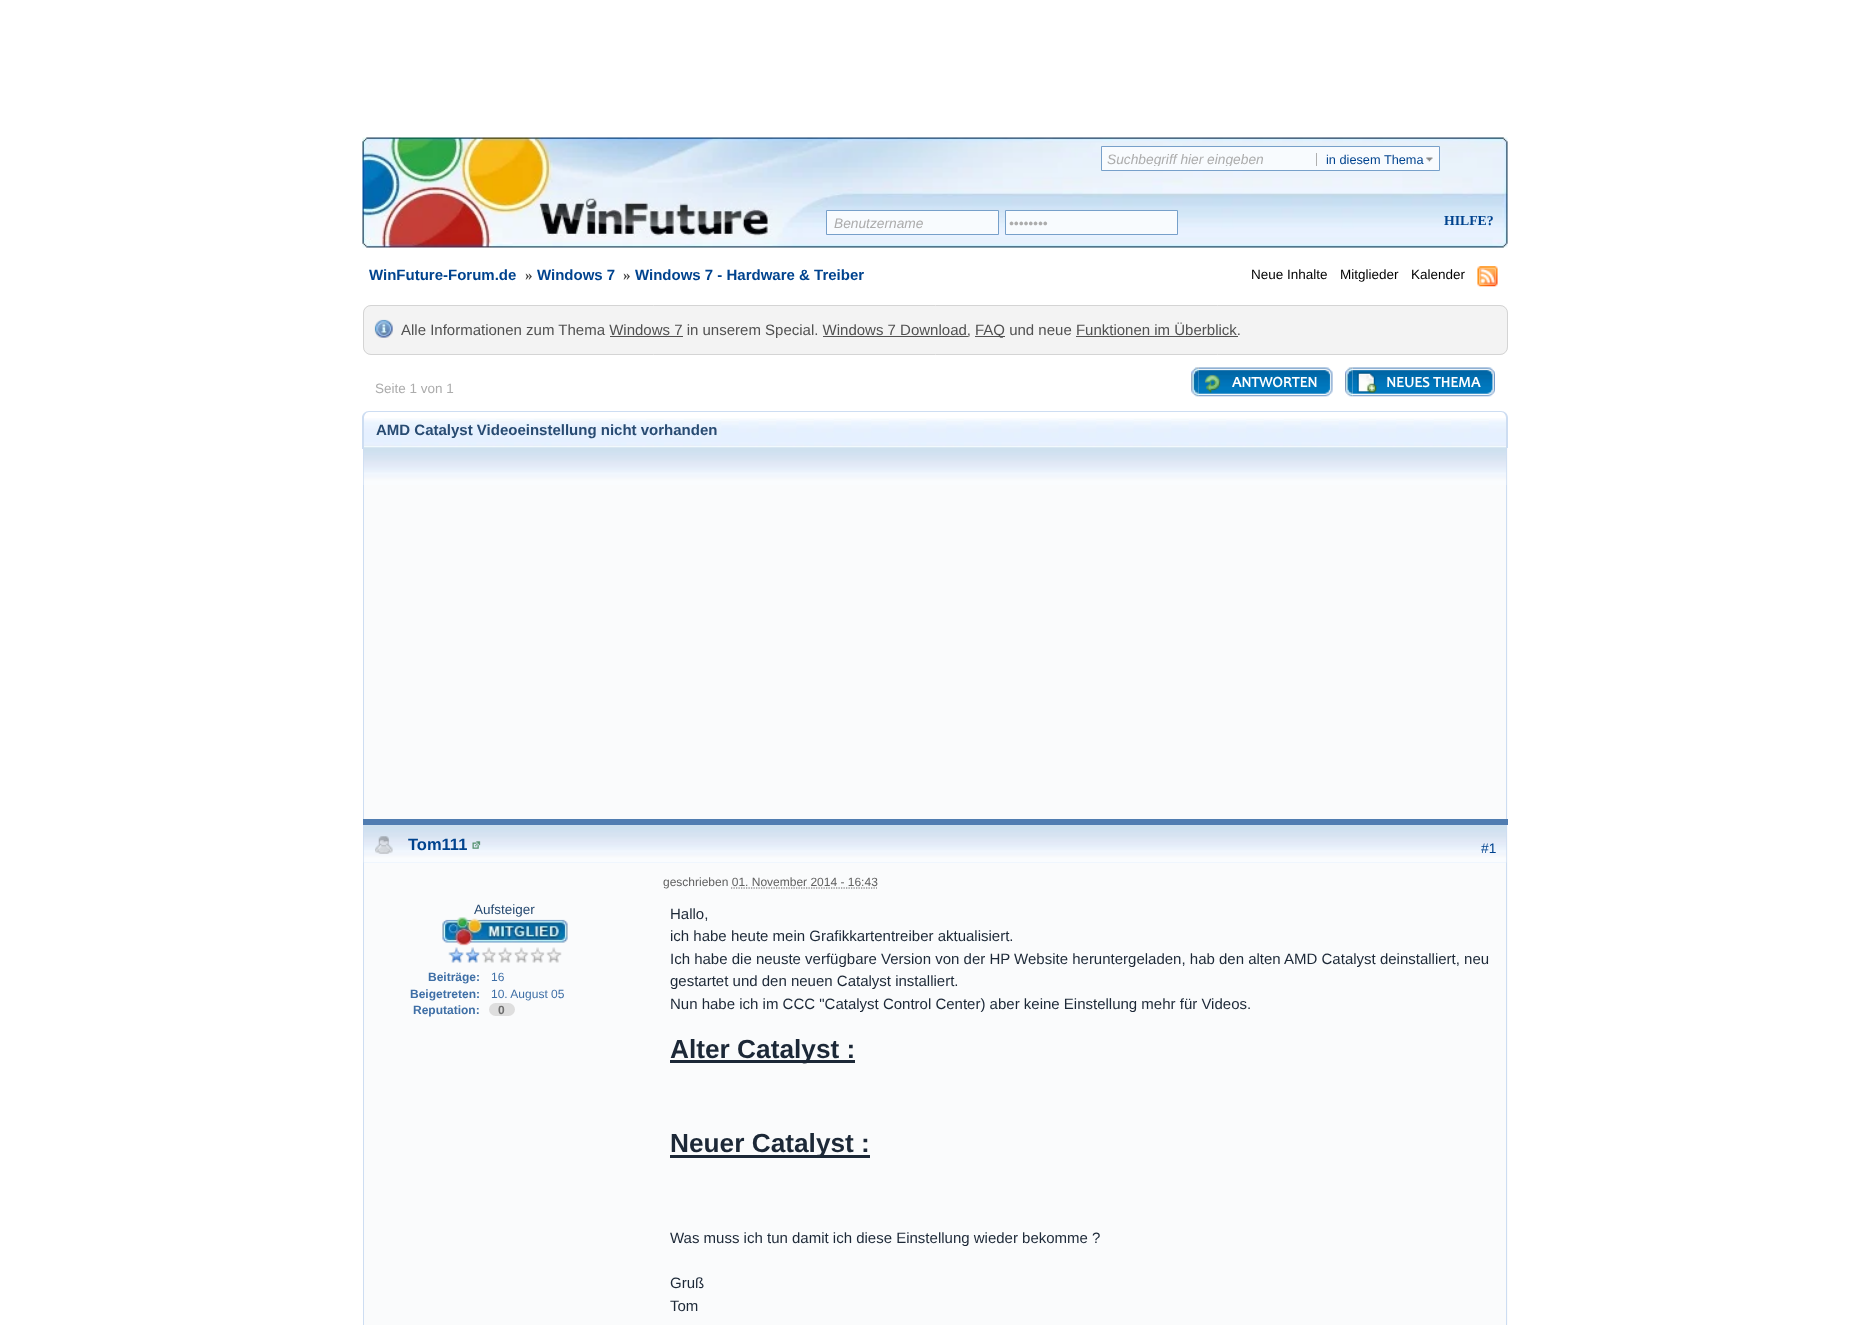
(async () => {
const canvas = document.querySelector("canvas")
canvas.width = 1870
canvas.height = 1325
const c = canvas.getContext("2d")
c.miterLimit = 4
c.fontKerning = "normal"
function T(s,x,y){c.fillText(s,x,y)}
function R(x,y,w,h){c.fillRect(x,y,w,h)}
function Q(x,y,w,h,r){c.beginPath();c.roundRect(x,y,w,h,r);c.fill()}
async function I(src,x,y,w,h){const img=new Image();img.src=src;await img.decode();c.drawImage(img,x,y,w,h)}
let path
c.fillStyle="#fff"
R(0,0,1870,1325)
await I("1.png",362,137,1146,111)
c.fillStyle="#f8fbfe"
c.beginPath()
c.rect(1101.5,146.5,338,24)
c.fill()
c.strokeStyle="#77a0ca"
c.stroke()
c.save()
c.beginPath()
c.rect(1106,151,207,15)
c.clip()
c.font="italic 13.75px Liberation Sans"
c.fillStyle="#acacac"
T("Suchbegriff hier eingeben",1107,164)
c.restore()
await I("2.png",1426,157,7,5)
c.fillStyle="#afafaf"
R(1316,153,1,13)
c.font="12.75px Liberation Sans"
c.fillStyle="#00438e"
T("in diesem Thema",1326,164)
c.fillStyle="#f8fbfe"
c.beginPath()
c.rect(826.5,210.5,172,24)
c.fill()
c.stroke()
c.font="italic 13.75px Liberation Sans"
c.fillStyle="#acacac"
T("Benutzername",834,228)
c.fillStyle="#f8fbfe"
c.beginPath()
c.rect(1005.5,210.5,172,24)
c.fill()
c.stroke()
c.fillStyle="#acacac"
T("••••••••",1009,228)
c.font="bold 13.75px Liberation Serif"
c.fillStyle="#00438e"
T("HILFE?",1444,225)
c.font="bold 15px Liberation Sans"
T("WinFuture-Forum.de",369,280)
c.font="bold 15px Liberation Serif"
c.fillStyle="#444"
T("»",525,280)
c.font="bold 15px Liberation Sans"
c.fillStyle="#00438e"
T("Windows 7",537,280)
c.font="bold 15px Liberation Serif"
c.fillStyle="#444"
T("»",623,280)
c.font="bold 15px Liberation Sans"
c.fillStyle="#00438e"
T("Windows 7 - Hardware & Treiber",635,280)
c.font="13.5px Liberation Sans"
c.fillStyle="#000"
T("Neue Inhalte",1251,279)
T("Mitglieder",1340,279)
T("Kalender",1411,279)
await I("3.png",1477,266,21,21)
c.fillStyle="#f3f3f3"
Q(363,305,1145,50,8)
await I("4.png",374,319,19,19)
c.beginPath()
c.roundRect(363.5,305.5,1144,49,7.5)
c.strokeStyle="#d4d4d4"
c.stroke()
c.font="15px Liberation Sans"
c.fillStyle="#515151"
T("Alle Informationen zum Thema Windows 7 in unserem Special. Windows 7 Download,",401,335)
R(610,336,73,1)
R(823,336,145,1)
R(975,336,30,1)
T("FAQ und neue Funktionen im Überblick.",975,335)
R(1076,336,162,1)
c.font="13.5px Liberation Sans"
c.fillStyle="#acacac"
T("Seite 1 von 1",375,393)
await I("5.png",1191,367,8,30)
await I("6.png",1198,367,135,30)
await I("7.png",1204,374,17,19)
c.font="bold 15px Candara"
c.fillStyle="#fff"
T("ANTWORTEN",1232,387)
await I("8.png",1345,367,8,30)
await I("9.png",1352,367,143,30)
await I("10.png",1357,372,20,21)
T("NEUES THEMA",1386,387)
await I("11.png",364,418,1142,30)
c.fillStyle="#cdddf2"
path = new Path2D("M369 411h1132c4 0 7 3 7 7v31h-1146v-31c0-4 3-7 7-7zm0 1h1132c3 0 5 3 5 6v31h-1142v-31c0-3 2-6 5-6z")
c.fill(path,"evenodd")
c.font="bold 15px Liberation Sans"
c.fillStyle="#284b72"
T("AMD Catalyst Videoeinstellung nicht vorhanden",376,435)
c.fillStyle="#507db1"
R(363,819,1145,6)
c.fillStyle="#fafbfc"
R(364,448,1144,371)
c.fillStyle="#cdddf2"
R(1506,448,1,371)
R(363,448,1,371)
await I("12.png",363,447,1144,38)
c.fillStyle="#fafbfc"
R(364,825,1144,500)
c.fillStyle="#cdddf2"
R(1506,825,1,500)
R(363,825,1,500)
c.fillStyle="#e5f0ff"
R(364,862,1142,1)
await I("13.png",363,825,1144,38)
await I("14.png",375,836,18,18)
c.font="bold 16.5px Liberation Sans"
c.fillStyle="#00438e"
T("Tom111",408,850)
await I("15.png",472,841,9,8)
c.font="13.75px Liberation Sans"
T("#1",1481,853)
c.font="13.5px Liberation Sans"
c.fillStyle="#284b72"
T("Aufsteiger",474,914)
await I("16.png",442,917,126,29)
await I("17.png",448,947,114,16)
c.font="bold 12px Liberation Sans"
c.fillStyle="#3f6fa6"
T("Beiträge:",428,981)
c.font="12px Liberation Sans"
T("16",491,981)
c.font="bold 12px Liberation Sans"
T("Beigetreten:",410,998)
c.font="12px Liberation Sans"
T("10. August 05",491,998)
c.font="bold 12px Liberation Sans"
T("Reputation:",413,1014)
c.fillStyle="#dedede"
Q(489,1003,26,13,6.5)
c.fillStyle="#6e6e6e"
T("0",498,1014)
c.font="12px Liberation Sans"
c.fillStyle="#606060"
T("geschrieben 01. November 2014 - 16:43",663,886)
path = new Path2D("M731 888h146")
c.strokeStyle="#606060"
c.lineWidth=1.2
c.setLineDash([1.25,1.25])
c.stroke(path)
c.font="15px Liberation Sans"
c.fillStyle="#1c2837"
T("Hallo,",670,919)
T("ich habe heute mein Grafikkartentreiber aktualisiert.",670,941)
T("Ich habe die neuste verfügbare Version von der HP Website heruntergeladen, hab den alten AMD Catalyst deinstalliert, neu",670,964)
T("gestartet und den neuen Catalyst installiert.",670,986)
T("Nun habe ich im CCC \"Catalyst Control Center) aber keine Einstellung mehr für Videos.",670,1009)
R(670,1060,185,3)
c.font="bold 26.25px Liberation Sans"
T("Alter Catalyst :",670,1058)
R(670,1155,200,3)
T("Neuer Catalyst :",670,1152)
c.font="15px Liberation Sans"
T("Was muss ich tun damit ich diese Einstellung wieder bekomme ?",670,1243)
T("Gruß",670,1288)
T("Tom",670,1311)
})()
